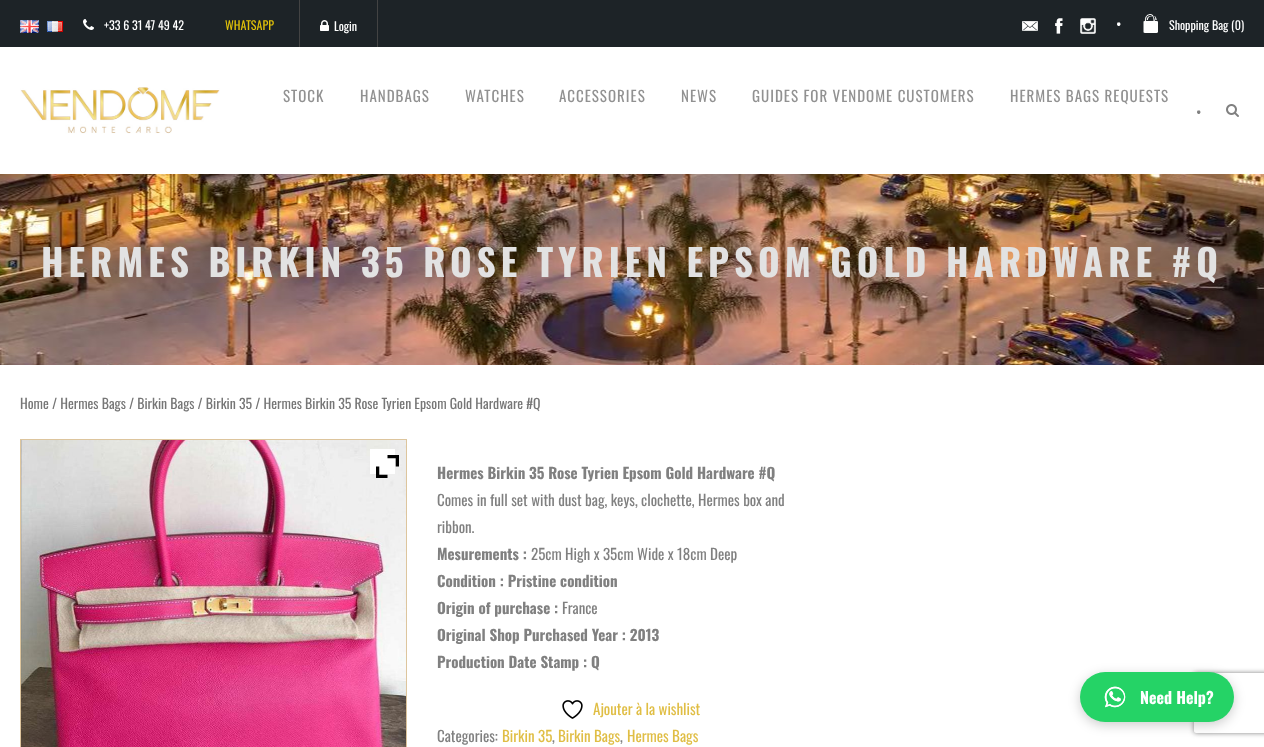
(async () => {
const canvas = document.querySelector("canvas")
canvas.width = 1264
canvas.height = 747
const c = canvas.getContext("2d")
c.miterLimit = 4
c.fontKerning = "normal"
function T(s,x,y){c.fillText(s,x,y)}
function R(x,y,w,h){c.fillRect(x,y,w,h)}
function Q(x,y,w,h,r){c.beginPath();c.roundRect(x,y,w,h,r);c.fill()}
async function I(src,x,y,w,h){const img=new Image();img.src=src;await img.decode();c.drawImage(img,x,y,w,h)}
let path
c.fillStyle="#fff"
R(0,0,1264,747)
c.fillStyle="#1d2327"
R(0,0,1264,47)
await I("1.png",20,20,19,13)
await I("2.png",47,21,16,11)
await I("3.png",83,19,11,11)
c.font="12px Oswald"
c.fillStyle="#fff"
T("+33 6 31 47 49 42",104,30)
c.fillStyle="#e2c209"
T("WHATSAPP",225,30)
c.fillStyle="#434343"
R(377,0,1,47)
R(299,0,1,47)
await I("4.png",320,20,9,11)
c.fillStyle="#fff"
T("Login",334,31)
await I("5.png",1022,21,16,10)
await I("6.png",1055,18,8,16)
await I("7.png",1080,18,16,16)
c.font="15px Oswald"
T("•",1116,30)
await I("8.png",1143,14,15,19)
c.font="12px Oswald"
T("Shopping Bag (0)",1169,30)
await I("9.png",20,87,200,47)
c.letterSpacing="1px"
c.font="15px Oswald"
c.fillStyle="#919191"
T("STOCK",283,102)
T("HANDBAGS",360,102)
T("WATCHES",465,102)
T("ACCESSORIES",559,102)
T("NEWS",681,102)
T("GUIDES FOR VENDOME CUSTOMERS",752,102)
T("HERMES BAGS REQUESTS",1010,102)
c.letterSpacing="0px"
c.fillStyle="#808080"
T("•",1196,118)
await I("10.png",1226,104,13,13)
await I("11.png",0,174,1264,191)
c.letterSpacing="5px"
c.font="bold 37px Oswald"
c.fillStyle="#e2e2e2"
T("HERMES BIRKIN 35 ROSE TYRIEN EPSOM GOLD HARDWARE #Q",41,277)
c.letterSpacing="0px"
c.font="13.8px Oswald"
c.fillStyle="#767676"
T("Home / Hermes Bags / Birkin Bags / Birkin 35 / Hermes Birkin 35 Rose Tyrien Epsom Gold Hardware #Q",20,409)
c.strokeStyle="#ddc59d"
c.strokeRect(20.5,439.5,386,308)
await I("12.png",21,440,385,307)
c.fillStyle="#fff"
R(370,449,25,25)
await I("13.png",376,455,23,23)
c.font="bold 15px Oswald"
c.fillStyle="#808080"
T("Hermes Birkin 35 Rose Tyrien Epsom Gold Hardware #Q",437,479)
c.font="15px Oswald"
T("Comes in full set with dust bag, keys, clochette, Hermes box and",437,506)
T("ribbon.",437,533)
c.font="bold 15px Oswald"
T("Mesurements :",437,560)
c.font="15px Oswald"
T("25cm High x 35cm Wide x 18cm Deep",531,560)
c.font="bold 15px Oswald"
T("Condition : Pristine condition",437,587)
T("Origin of purchase :",437,614)
c.font="15px Oswald"
T("France",562,614)
c.font="bold 15px Oswald"
T("Original Shop Purchased Year : 2013",437,641)
T("Production Date Stamp : Q",437,668)
await I("14.png",562,700,21,19)
c.font="15px Oswald"
c.fillStyle="#e0be45"
T("Ajouter à la wishlist",593,715)
c.fillStyle="#808080"
T("Categories:",437,742)
c.fillStyle="#e0be45"
T("Birkin 35",502,742)
c.fillStyle="#808080"
T(",",552,742)
c.fillStyle="#e0be45"
T("Birkin Bags",558,742)
c.fillStyle="#808080"
T(",",620,742)
c.fillStyle="#e0be45"
T("Hermes Bags",627,742)
c.fillStyle="#00000033"
c.filter="blur(6px)"
c.beginPath()
c.roundRect(1080,675,154,50,25)
c.fill()
c.filter="none"
c.save()
path = new Path2D("M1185 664h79v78h-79zm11 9h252c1 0 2 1 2 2v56c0 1-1 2-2 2h-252c-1 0-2-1-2-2v-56c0-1 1-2 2-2z")
c.clip(path,"evenodd")
c.fillStyle="#808080"
c.filter="blur(2.5px)"
c.beginPath()
c.roundRect(1194,673,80,60,2)
c.fill()
c.filter="none"
c.restore()
c.fillStyle="#25d366"
Q(1080,672,154,50,25)
await I("15.png",1104,686,22,22)
c.font="bold 16px Oswald"
c.fillStyle="#fff"
T("Need Help?",1140,704)
})()
